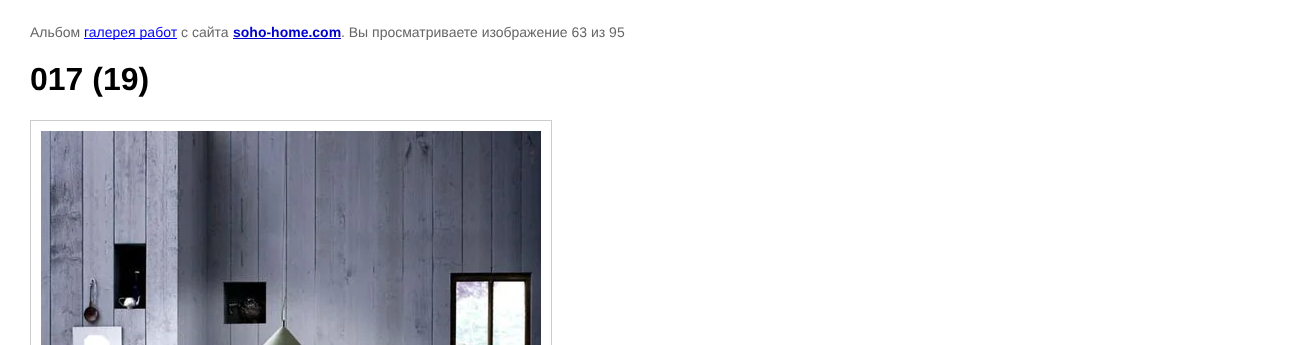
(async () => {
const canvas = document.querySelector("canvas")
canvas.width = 1304
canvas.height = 345
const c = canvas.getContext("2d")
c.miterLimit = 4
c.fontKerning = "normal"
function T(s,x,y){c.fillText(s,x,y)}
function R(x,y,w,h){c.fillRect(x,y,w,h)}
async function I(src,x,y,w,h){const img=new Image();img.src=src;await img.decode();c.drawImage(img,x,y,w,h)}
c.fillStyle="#fff"
R(0,0,1304,345)
c.font="14px Liberation Sans"
c.fillStyle="#666"
T("Альбом",30,37)
c.fillStyle="#00f"
R(84,38,93,1)
T("галерея работ",84,37)
c.fillStyle="#666"
T("с сайта",181,37)
c.font="bold 14px Liberation Sans"
c.fillStyle="#00c"
T("soho-home.com",233,37)
R(233,38,108,1)
c.font="14px Liberation Sans"
c.fillStyle="#666"
T(". Вы просматриваете изображение 63 из 95",341,37)
c.font="bold 32px Liberation Sans"
c.fillStyle="#000"
T("017 (19)",30,90)
c.strokeStyle="#ccc"
c.strokeRect(30.5,120.5,521,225)
await I("1.png",41,131,500,214)
})()
